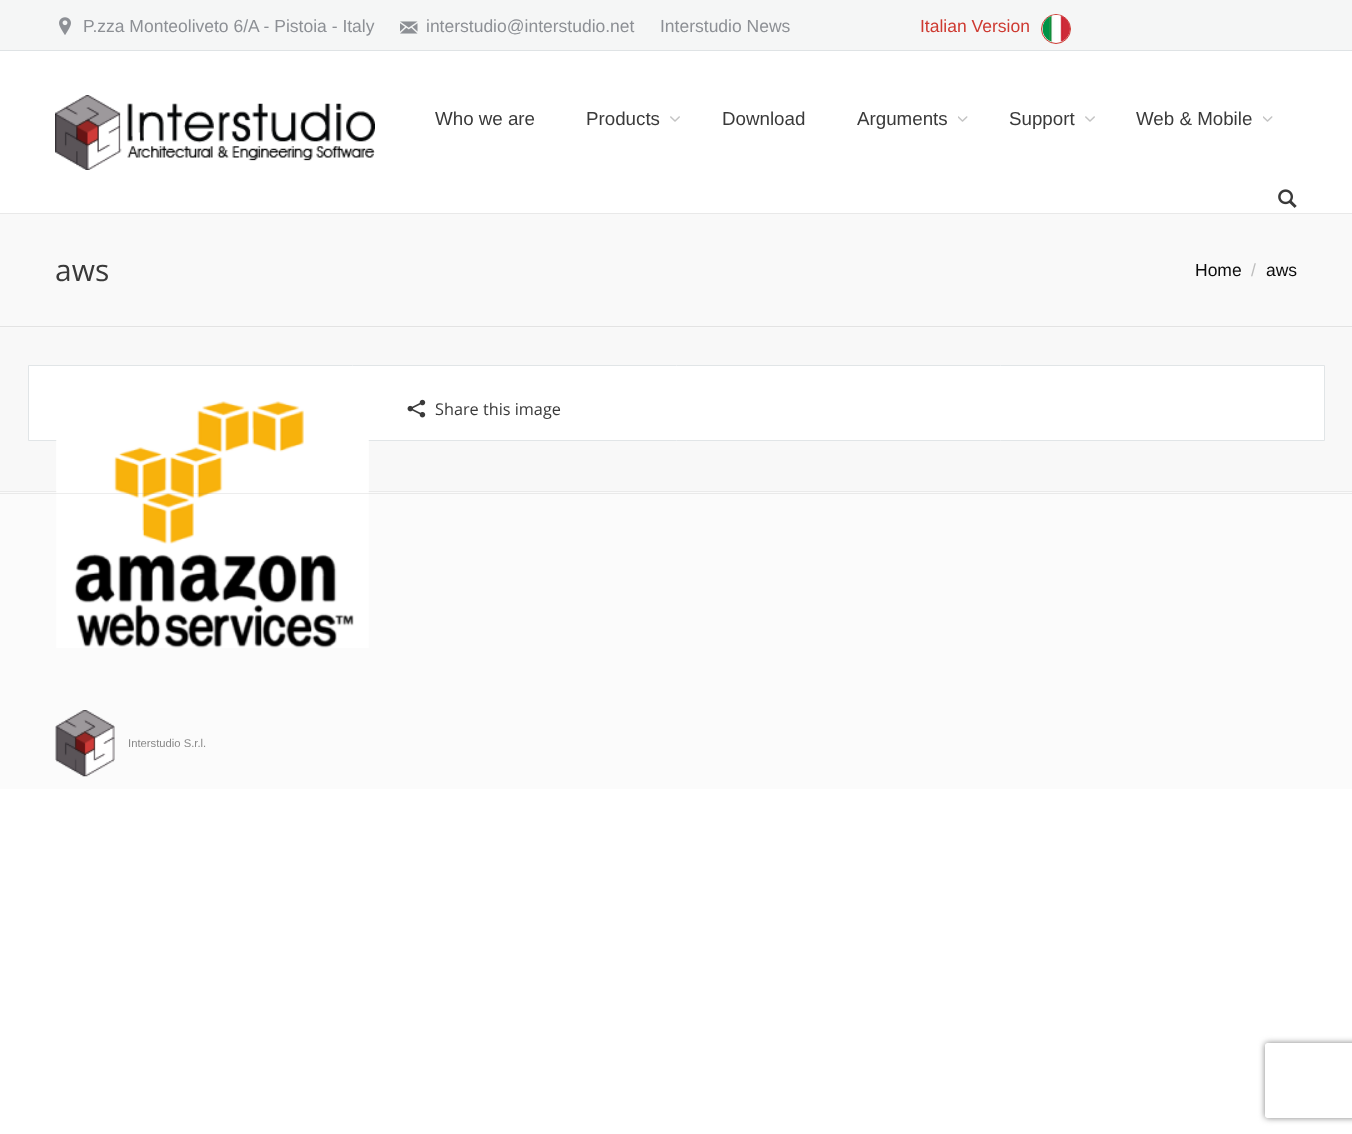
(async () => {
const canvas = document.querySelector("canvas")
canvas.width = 1352
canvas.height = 1134
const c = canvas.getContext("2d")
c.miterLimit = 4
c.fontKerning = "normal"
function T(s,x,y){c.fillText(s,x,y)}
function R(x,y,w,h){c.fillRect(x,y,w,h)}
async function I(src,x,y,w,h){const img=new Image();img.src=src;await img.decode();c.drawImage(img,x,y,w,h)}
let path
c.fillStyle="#fff"
R(0,0,1352,1134)
c.fillStyle="#e9e9e9"
R(0,213,1352,1)
c.fillStyle="#f5f6f6"
R(0,0,1352,50)
c.fillStyle="#dfe3e5"
R(0,50,1352,1)
await I("1.png",59,17,12,18)
c.font="17.5px Liberation Sans"
c.fillStyle="#8d9095"
T("P.zza Monteoliveto 6/A - Pistoia - Italy",83,32)
await I("2.png",400,21,18,13)
T("interstudio@interstudio.net",426,32)
T("Interstudio News",660,32)
c.fillStyle="#ce3a31"
T("Italian Version",920,32)
c.beginPath()
c.arc(1056,29,14.5,0,7)
c.strokeStyle="#ce3a31"
c.stroke()
await I("3.png",1042,15,28,28)
await I("4.png",55,95,320,75)
c.font="18.75px Liberation Sans"
c.fillStyle="#3a3a3a"
T("Who we are",435,125)
T("Products",586,125)
await I("5.png",670,116,10,6)
T("Download",722,125)
T("Arguments",857,125)
await I("6.png",958,116,10,6)
T("Support",1009,125)
await I("5.png",1085,116,10,6)
T("Web & Mobile",1136,125)
await I("6.png",1263,116,10,6)
await I("7.png",1278,189,19,19)
c.fillStyle="#f9f9f9"
R(0,214,1352,114)
c.fillStyle="#e3e3e3"
R(0,326,1352,1)
c.font="30px Open Sans"
c.fillStyle="#3a3a3a"
T("aws",55,281)
c.font="17.5px Liberation Sans"
c.fillStyle="#0c0c0c"
T("Home",1195,276)
c.fillStyle="#bebebe"
T("/",1251,276)
c.fillStyle="#0c0c0c"
T("aws",1266,276)
c.fillStyle="#f8f8f8"
R(0,328,1352,163)
c.fillStyle="#fff"
c.beginPath()
c.rect(28.5,365.5,1296,75)
c.fill()
c.strokeStyle="#e1e5e7"
c.stroke()
c.fillStyle="#fbfbfb"
R(0,492,1352,297)
c.fillStyle="#eaeaea"
R(0,491,1352,1)
await I("8.png",56,401,313,247)
await I("9.png",407,399,19,19)
c.font="16.25px Open Sans"
c.fillStyle="#3a3a3a"
T("Share this image",435,415)
c.fillStyle="#88888826"
R(0,493,1352,1)
await I("10.png",55,710,60,67)
c.font="11.25px Liberation Sans"
c.fillStyle="#888"
T("Interstudio S.r.l.",128,747)
c.save()
path = new Path2D("M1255 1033h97v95h-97zm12.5 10h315c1.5 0 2.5 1 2.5 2.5v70c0 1.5-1 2.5-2.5 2.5h-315c-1.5 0-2.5-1-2.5-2.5v-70c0-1.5 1-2.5 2.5-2.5z")
c.clip(path,"evenodd")
c.fillStyle="#808080"
c.filter="blur(3px)"
c.beginPath()
c.roundRect(1265,1043,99,75,2.5)
c.fill()
c.filter="none"
c.restore()
})()
